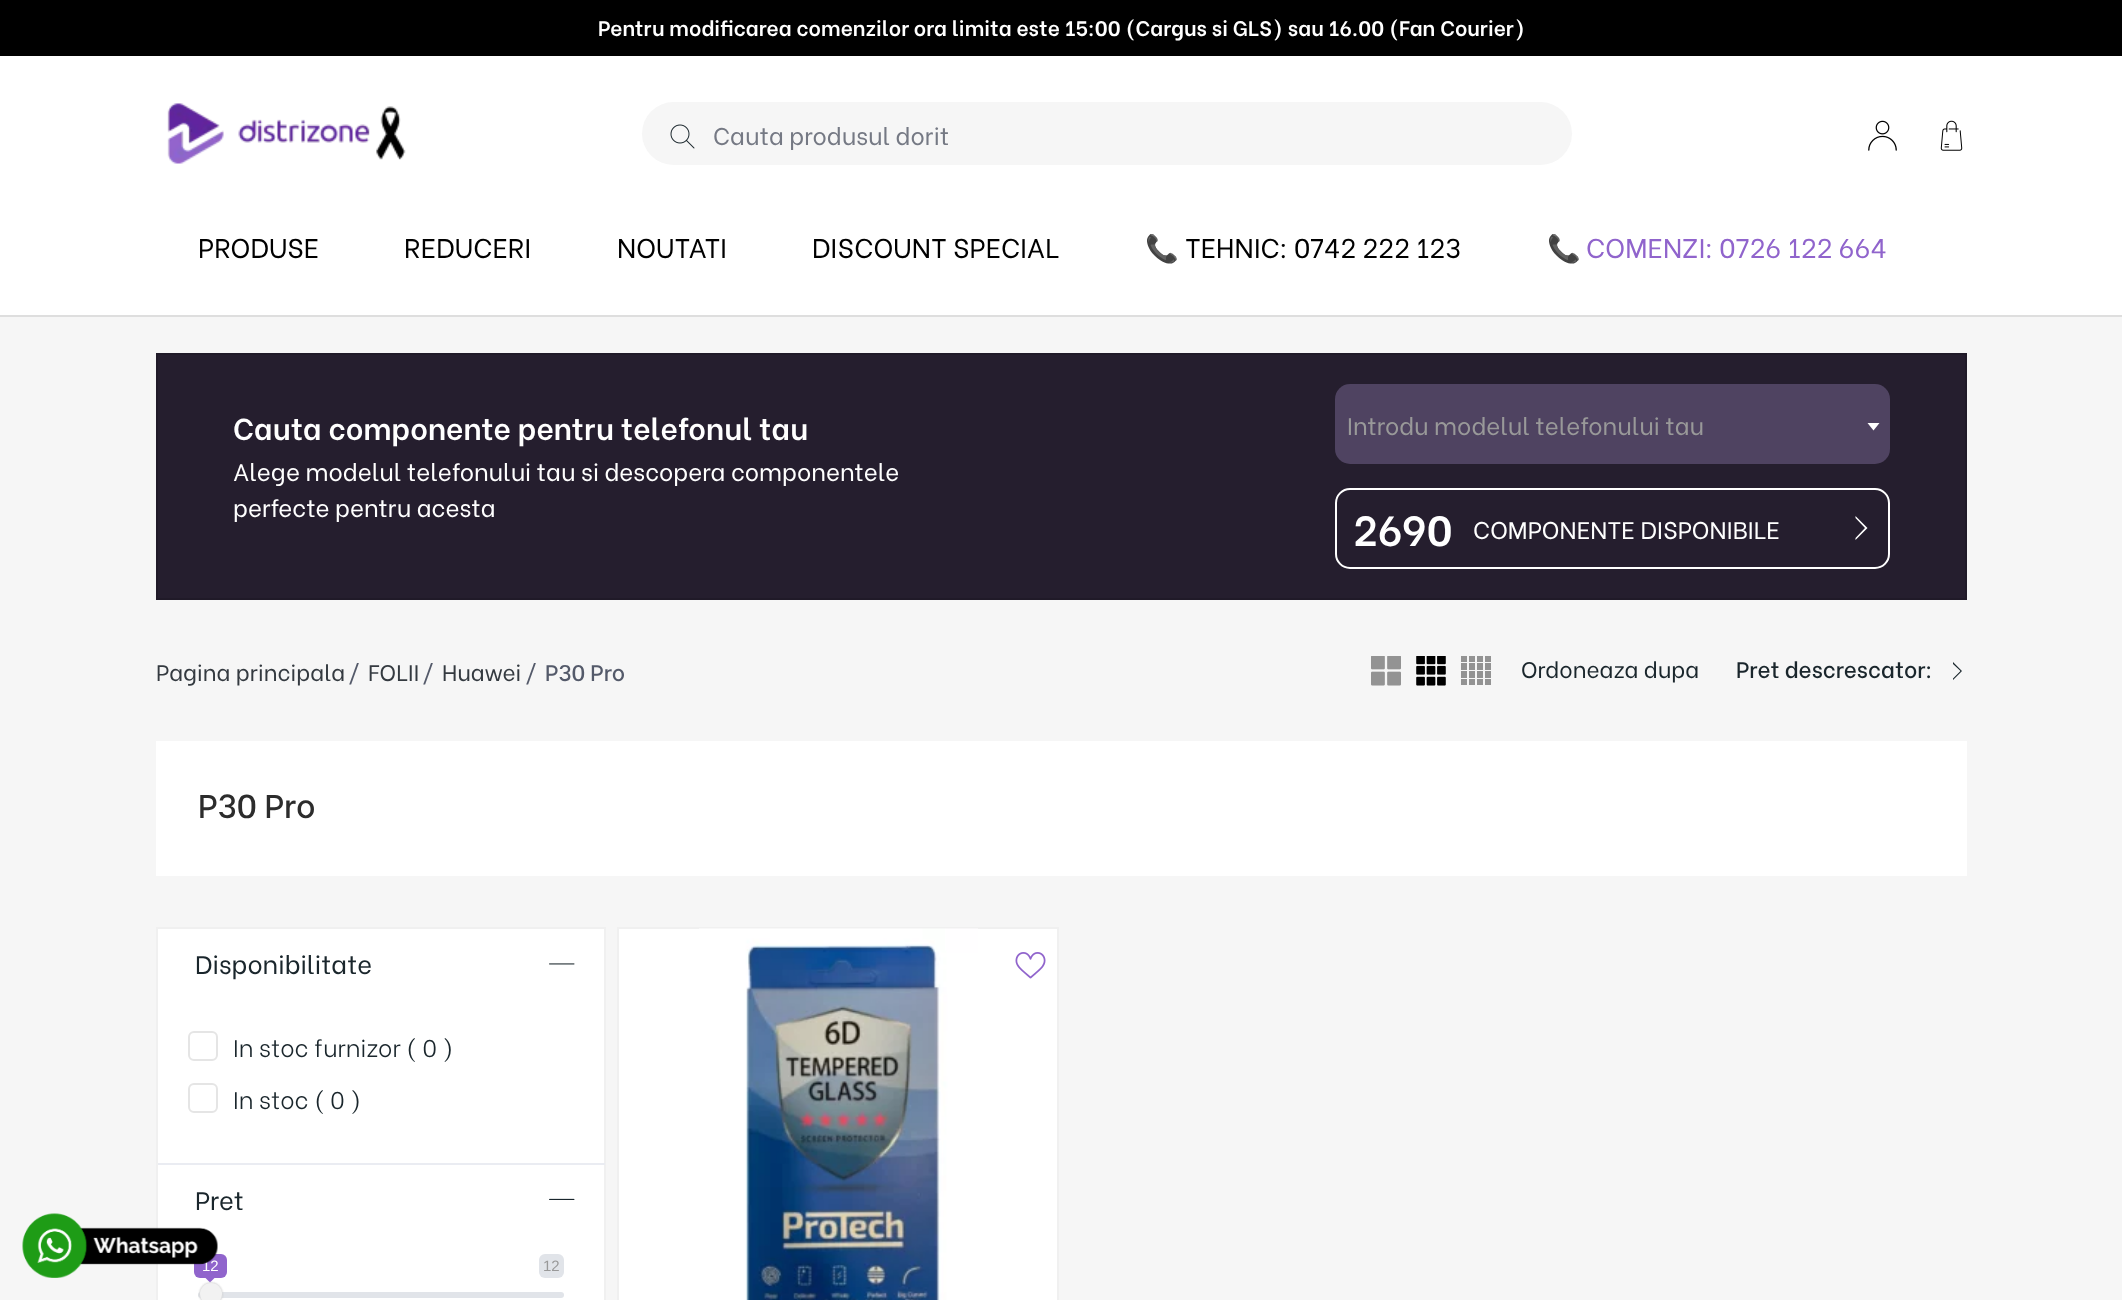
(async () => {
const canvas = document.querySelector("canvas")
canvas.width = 2122
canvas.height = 1300
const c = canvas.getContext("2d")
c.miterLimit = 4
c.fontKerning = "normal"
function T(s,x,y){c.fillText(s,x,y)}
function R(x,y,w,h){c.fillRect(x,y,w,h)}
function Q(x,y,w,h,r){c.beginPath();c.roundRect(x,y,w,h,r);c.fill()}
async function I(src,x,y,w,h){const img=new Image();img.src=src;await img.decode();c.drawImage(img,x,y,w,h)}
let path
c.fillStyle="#f6f6f6"
R(0,0,2122,1300)
c.fillStyle="#000"
R(0,0,2122,56)
c.font="600 21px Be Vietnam"
c.fillStyle="#fff"
T("Pentru modificarea comenzilor ora limita este 15:00 (Cargus si GLS) sau 16.00 (Fan Courier)",598,36)
R(0,56,2122,259)
c.fillStyle="#dedede"
R(0,315,2122,2)
await I("1.png",167,103,239,61)
c.fillStyle="#f6f6f6"
Q(642,102,930,63,31.5)
await I("2.png",670,124,25,25)
c.font="24px Be Vietnam"
c.fillStyle="#757984"
T("Cauta produsul dorit",713,145)
await I("3.png",1868,120,29,31)
await I("4.png",1940,120,23,31)
c.font="27px Be Vietnam"
c.fillStyle="#000"
T("PRODUSE",198,258)
T("REDUCERI",404,258)
T("NOUTATI",617,258)
T("DISCOUNT SPECIAL",812,258)
c.font="27px Noto Color Emoji"
T("📞",1145,258)
c.font="27px Be Vietnam"
T("TEHNIC: 0742 222 123",1185,258)
c.font="27px Noto Color Emoji"
c.fillStyle="#9064cc"
T("📞",1547,258)
c.font="27px Be Vietnam"
T("COMENZI: 0726 122 664",1586,258)
c.fillStyle="#fff"
c.beginPath()
c.rect(157,928,448,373)
c.fill()
c.strokeStyle="#f0f0f0"
c.lineWidth=2
c.stroke()
c.fillStyle="#9064cc"
Q(194,1254,33,24,6)
c.font="15px Liberation Sans"
c.fillStyle="#fff"
T("12",202,1271)
await I("5.png",22,1213,196,65)
c.fillStyle="#251e2e"
c.beginPath()
c.rect(157,354,1809,245)
c.fill()
c.strokeStyle="#201a28"
c.stroke()
c.font="600 30px Be Vietnam"
c.fillStyle="#fff"
T("Cauta componente pentru telefonul tau",233,440)
c.font="24px Be Vietnam"
T("Alege modelul telefonului tau si descopera componentele",233,481)
T("perfecte pentru acesta",233,517)
c.fillStyle="#4f4361"
Q(1335,384,555,80,15)
c.fillStyle="#999"
T("Introdu modelul telefonului tau",1347,435)
c.fillStyle="#fff"
path = new Path2D("M1867.5 423h12l-6 7.5z")
c.fill(path)
c.beginPath()
c.roundRect(1336,489,553,79,14)
c.strokeStyle="#fff"
c.stroke()
c.font="600 42px Be Vietnam"
T("2690",1353,546)
c.font="24px Be Vietnam"
T("COMPONENTE DISPONIBILE",1473,539)
path = new Path2D("M1865 528l-9.5-10v-2l12 12l-12 12v-2z")
c.fill(path)
c.font="22.5px Be Vietnam"
c.fillStyle="#343a40"
T("Pagina principala",156,681)
c.fillStyle="#545a6a"
T("/",348,681)
c.fillStyle="#343a40"
T("FOLII",368,681)
c.fillStyle="#545a6a"
T("/",422,681)
c.fillStyle="#343a40"
T("Huawei",442,681)
c.fillStyle="#545a6a"
T("/",525,681)
c.font="500 22.5px Be Vietnam"
T("P30 Pro",545,681)
await I("6.png",1371,656,30,30)
await I("7.png",1416,656,30,30)
await I("8.png",1461,656,30,29)
c.font="22.5px Be Vietnam"
c.fillStyle="#1a262c"
T("Ordoneaza dupa",1521,678)
c.font="500 22.5px Be Vietnam"
T("Pret descrescator:",1736,678)
path = new Path2D("M1960.5 671l-7.5-7v-2l9 9l-9 9v-1.5z")
c.fill(path)
c.fillStyle="#fff"
R(156,741,1811,135)
c.font="500 33px Be Vietnam"
c.fillStyle="#2c2c2c"
T("P30 Pro",198,818)
c.fillStyle="#eaecf2"
R(158,1163,447,2)
c.font="25.5px Be Vietnam"
c.fillStyle="#1a262c"
T("Disponibilitate",195,974)
await I("9.png",549,963,26,2)
c.beginPath()
c.roundRect(189,1032,28,28,5)
c.strokeStyle="#e5e5e5"
c.stroke()
c.font="300 24px Be Vietnam"
T("In stoc furnizor ( 0 )",233,1057)
c.beginPath()
c.roundRect(189,1084,28,28,5)
c.stroke()
T("In stoc ( 0 )",233,1109)
c.font="25.5px Be Vietnam"
T("Pret",195,1210)
await I("10.png",549,1198,26,2)
c.fillStyle="#9064cc"
path = new Path2D("M205.5 1278h9l-4.5 4.5z")
c.fill(path)
c.fillStyle="#e1e4e9"
Q(539,1254,25,24,6)
c.font="15px Liberation Sans"
c.fillStyle="#999"
T("12",543,1271)
c.fillStyle="#e1e4e9"
Q(198,1292,366,6,3)
c.fillStyle="#d3d3d3"
c.filter="blur(1px)"
c.beginPath()
c.roundRect(200,1283,22,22,11)
c.fill()
c.filter="none"
c.filter="blur(1px)"
c.beginPath()
c.roundRect(200,1283,22,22,11)
c.fill()
c.filter="none"
c.fillStyle="#f2f2f2"
c.beginPath()
c.arc(211,1294,11,0,7)
c.fill()
c.fillStyle="#fff"
c.beginPath()
c.rect(618,928,440,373)
c.fill()
c.strokeStyle="#f0f0f0"
c.stroke()
await I("11.png",699,928,279,372)
await I("12.png",1015,952,31,27)
})()
